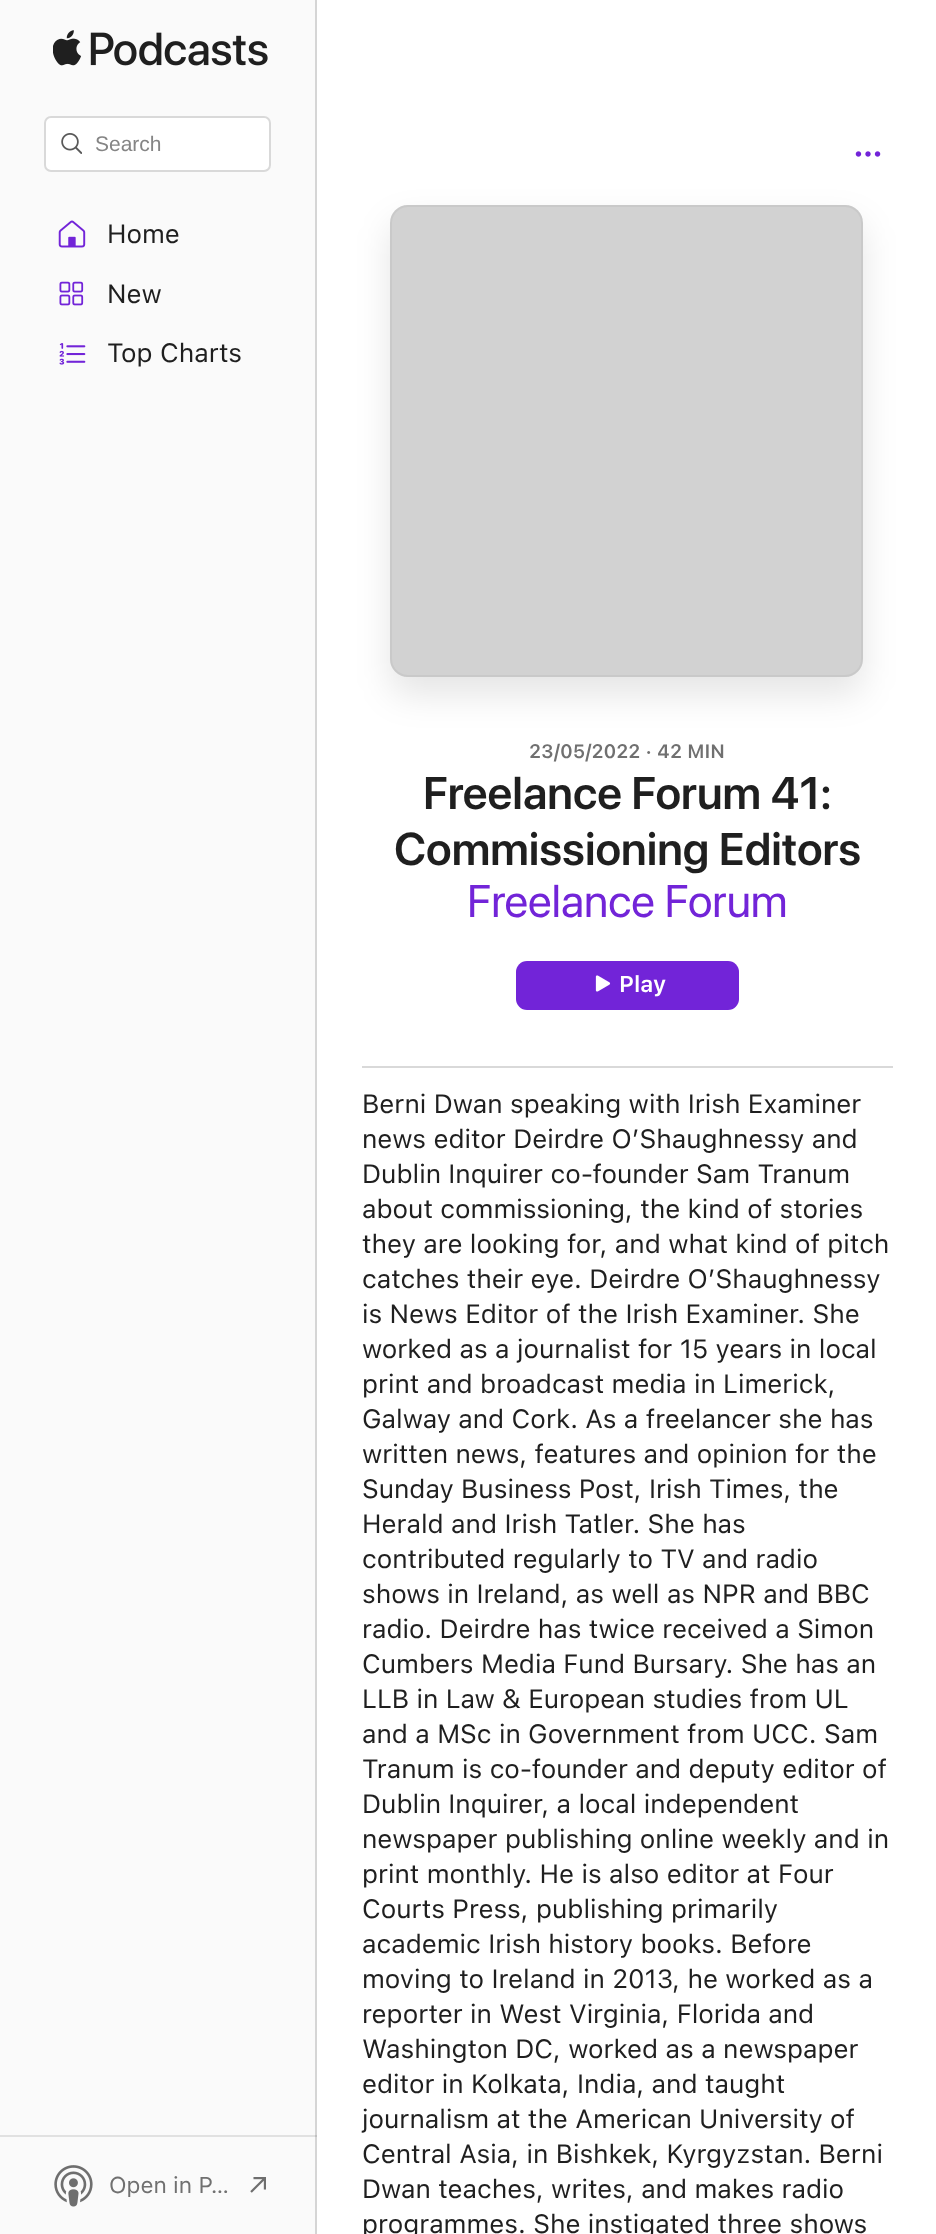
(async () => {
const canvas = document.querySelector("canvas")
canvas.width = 936
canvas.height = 2234
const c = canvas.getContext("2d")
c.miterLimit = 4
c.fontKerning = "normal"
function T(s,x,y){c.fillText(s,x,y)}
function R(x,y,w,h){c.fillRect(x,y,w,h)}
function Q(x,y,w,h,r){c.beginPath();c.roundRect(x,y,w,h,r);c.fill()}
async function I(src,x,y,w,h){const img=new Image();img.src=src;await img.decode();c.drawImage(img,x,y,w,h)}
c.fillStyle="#fff"
R(0,0,936,2234)
c.fillStyle="#fafafa"
R(0,0,315,2234)
c.fillStyle="#e1e1e1"
R(0,2135,317,2)
c.fillStyle="#d5d5d5"
R(315,0,2,2234)
c.fillStyle="#c0c0c0"
R(315,2135,2,2)
await I("1.png",53,30,215,36)
c.fillStyle="#fff"
c.beginPath()
c.roundRect(45,117,225,54,6)
c.fill()
c.strokeStyle="#d9d9d9"
c.lineWidth=2
c.stroke()
await I("2.png",61,133,21,21)
c.font="21px Liberation Sans"
c.fillStyle="#858585"
T("Search",95,151)
await I("3.png",58,220,28,28)
c.font="26.25px 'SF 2'"
c.fillStyle="#1f1f1f"
T("Home",107,243)
await I("4.png",59,281,25,25)
T("New",107,303)
await I("5.png",59,343,27,22)
T("Top Charts",107,362)
await I("6.png",54,2165,39,42)
c.font="22.75px 'SF 2'"
c.fillStyle="#707070"
T("Open in P…",109,2193)
await I("7.png",250,2177,16,16)
await I("8.png",855,151,26,6)
c.fillStyle="#0000001a"
c.filter="blur(17.5px)"
c.beginPath()
c.roundRect(390,222,473,473,18)
c.fill()
c.filter="none"
c.fillStyle="#d2d2d2"
Q(390,205,473,472,18)
c.beginPath()
c.roundRect(391,206,471,470,17)
c.strokeStyle="#8080801a"
c.stroke()
c.font="600 19.25px SF"
c.fillStyle="#707070"
T("23/05/2022 · 42 MIN",529,758)
c.font="600 45.5px 'SF 2'"
c.fillStyle="#1f1f1f"
T("Freelance Forum 41:",423,809)
T("Commissioning Editors",394,865)
c.font="45.5px SF"
c.fillStyle="#7224d8"
T("Freelance Forum",467,917)
Q(516,961,223,49,11)
await I("9.png",595,975,16,17)
c.font="600 22.75px SF"
c.fillStyle="#fff"
T("Play",619,992)
c.fillStyle="#d9d9d9"
R(362,1066,531,2)
c.font="26.25px 'SF 2'"
c.fillStyle="#1f1f1f"
T("Berni Dwan speaking with Irish Examiner",362,1113)
T("news editor Deirdre O’Shaughnessy and",362,1148)
T("Dublin Inquirer co-founder Sam Tranum",362,1183)
T("about commissioning, the kind of stories",362,1218)
T("they are looking for, and what kind of pitch",362,1253)
T("catches their eye. Deirdre O’Shaughnessy",362,1288)
T("is News Editor of the Irish Examiner. She",362,1323)
T("worked as a journalist for 15 years in local",362,1358)
T("print and broadcast media in Limerick,",362,1393)
T("Galway and Cork. As a freelancer she has",362,1428)
T("written news, features and opinion for the",362,1463)
T("Sunday Business Post, Irish Times, the",362,1498)
T("Herald and Irish Tatler. She has",362,1533)
T("contributed regularly to TV and radio",362,1568)
T("shows in Ireland, as well as NPR and BBC",362,1603)
T("radio. Deirdre has twice received a Simon",362,1638)
T("Cumbers Media Fund Bursary. She has an",362,1673)
T("LLB in Law & European studies from UL",362,1708)
T("and a MSc in Government from UCC. Sam",362,1743)
T("Tranum is co-founder and deputy editor of",362,1778)
T("Dublin Inquirer, a local independent",362,1813)
T("newspaper publishing online weekly and in",362,1848)
T("print monthly. He is also editor at Four",362,1883)
T("Courts Press, publishing primarily",362,1918)
T("academic Irish history books. Before",362,1953)
T("moving to Ireland in 2013, he worked as a",362,1988)
T("reporter in West Virginia, Florida and",362,2023)
T("Washington DC, worked as a newspaper",362,2058)
T("editor in Kolkata, India, and taught",362,2093)
T("journalism at the American University of",362,2128)
T("Central Asia, in Bishkek, Kyrgyzstan. Berni",362,2163)
T("Dwan teaches, writes, and makes radio",362,2198)
T("programmes. She instigated three shows",362,2233)
})()
